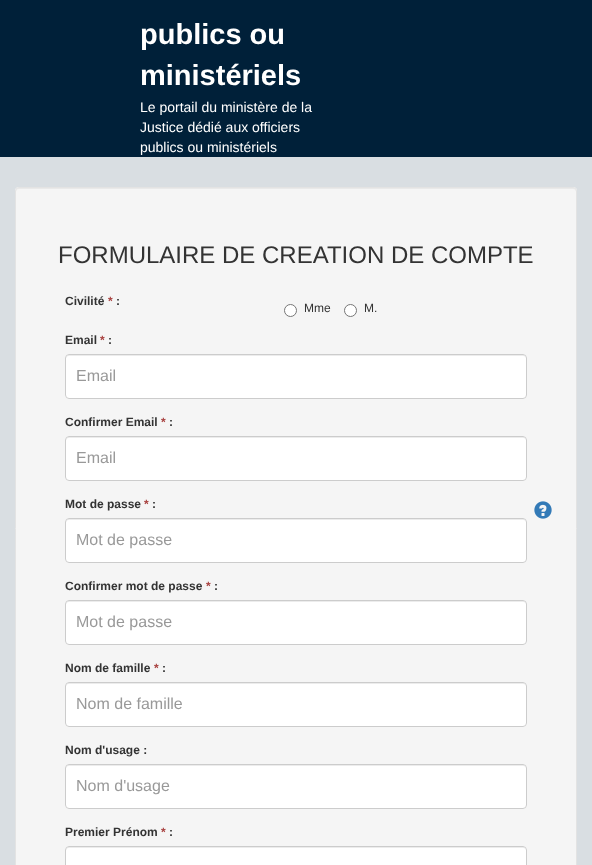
(async () => {
const canvas = document.querySelector("canvas")
canvas.width = 592
canvas.height = 865
const c = canvas.getContext("2d")
c.miterLimit = 4
c.fontKerning = "normal"
function T(s,x,y){c.fillText(s,x,y)}
function R(x,y,w,h){c.fillRect(x,y,w,h)}
function Q(x,y,w,h,r){c.beginPath();c.roundRect(x,y,w,h,r);c.fill()}
async function I(src,x,y,w,h){const img=new Image();img.src=src;await img.decode();c.drawImage(img,x,y,w,h)}
let path
c.fillStyle="#d9dee2"
R(0,0,592,865)
c.fillStyle="#002039"
R(0,0,592,157)
c.font="bold 29px Liberation Sans"
c.fillStyle="#fff"
T("publics ou",140,44)
T("ministériels",140,85)
c.font="14px Liberation Sans"
T("Le portail du ministère de la",140,112)
T("Justice dédié aux officiers",140,132)
T("publics ou ministériels",140,152)
c.fillStyle="#f5f5f5"
Q(15,187,562,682,4)
c.fillStyle="#e9e9e9"
path = new Path2D("M19 189h554c2 0 3 1 3 3v-1c0-2-1-3-3-3h-554c-2 0-3 1-3 3v1c0-2 1-3 3-3z")
c.fill(path)
c.beginPath()
c.roundRect(15.5,187.5,561,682,3.5)
c.strokeStyle="#e3e3e3"
c.stroke()
c.font="24px Liberation Sans"
c.fillStyle="#333"
T("FORMULAIRE DE CREATION DE COMPTE",58,263)
c.font="bold 12px Liberation Sans"
T("Civilité",65,305)
c.fillStyle="#a94442"
T("*",108,305)
c.fillStyle="#333"
T(":",116,305)
c.fillStyle="#fff"
c.beginPath()
c.arc(290.5,310.5,6,0,7)
c.fill()
c.strokeStyle="#767676"
c.stroke()
c.font="12px Liberation Sans"
c.fillStyle="#333"
T("Mme",304,312)
c.fillStyle="#fff"
c.beginPath()
c.arc(350.5,310.5,6,0,7)
c.fill()
c.stroke()
c.fillStyle="#333"
T("M.",364,312)
c.font="bold 12px Liberation Sans"
T("Email",65,344)
c.fillStyle="#a94442"
T("*",100,344)
c.fillStyle="#333"
T(":",108,344)
c.fillStyle="#fff"
Q(65,354,462,45,4)
c.fillStyle="#ececec"
path = new Path2D("M69 356h454c2 0 3 1 3 3c0-2-1-4-3-4h-455l-2 2v2c0-2 1-3 3-3z")
c.fill(path)
c.beginPath()
c.roundRect(65.5,354.5,461,44,3.5)
c.strokeStyle="#ccc"
c.stroke()
c.font="16px Liberation Sans"
c.fillStyle="#999"
T("Email",76,381)
c.font="bold 12px Liberation Sans"
c.fillStyle="#333"
T("Confirmer Email",65,426)
c.fillStyle="#a94442"
T("*",161,426)
c.fillStyle="#333"
T(":",169,426)
c.fillStyle="#fff"
Q(65,436,462,45,4)
c.fillStyle="#ececec"
path = new Path2D("M69 438h454c2 0 3 1 3 3c0-2-1-4-3-4h-455l-2 2v2c0-2 1-3 3-3z")
c.fill(path)
c.beginPath()
c.roundRect(65.5,436.5,461,44,3.5)
c.stroke()
c.font="16px Liberation Sans"
c.fillStyle="#999"
T("Email",76,463)
c.font="bold 12px Liberation Sans"
c.fillStyle="#333"
T("Mot de passe",65,508)
c.fillStyle="#a94442"
T("*",144,508)
c.fillStyle="#333"
T(":",152,508)
await I("1.png",534,501,18,18)
c.fillStyle="#fff"
Q(65,518,462,45,4)
c.fillStyle="#ececec"
path = new Path2D("M69 520h454c2 0 3 1 3 3c0-2-1-4-3-4h-455l-2 2v2c0-2 1-3 3-3z")
c.fill(path)
c.beginPath()
c.roundRect(65.5,518.5,461,44,3.5)
c.stroke()
c.font="16px Liberation Sans"
c.fillStyle="#999"
T("Mot de passe",76,545)
c.font="bold 12px Liberation Sans"
c.fillStyle="#333"
T("Confirmer mot de passe",65,590)
c.fillStyle="#a94442"
T("*",206,590)
c.fillStyle="#333"
T(":",214,590)
c.fillStyle="#fff"
Q(65,600,462,45,4)
c.fillStyle="#ececec"
path = new Path2D("M69 602h454c2 0 3 1 3 3c0-2-1-4-3-4h-455l-2 2v2c0-2 1-3 3-3z")
c.fill(path)
c.beginPath()
c.roundRect(65.5,600.5,461,44,3.5)
c.stroke()
c.font="16px Liberation Sans"
c.fillStyle="#999"
T("Mot de passe",76,627)
c.font="bold 12px Liberation Sans"
c.fillStyle="#333"
T("Nom de famille",65,672)
c.fillStyle="#a94442"
T("*",154,672)
c.fillStyle="#333"
T(":",162,672)
c.fillStyle="#fff"
Q(65,682,462,45,4)
c.fillStyle="#ececec"
path = new Path2D("M69 684h454c2 0 3 1 3 3c0-2-1-4-3-4h-455l-2 2v2c0-2 1-3 3-3z")
c.fill(path)
c.beginPath()
c.roundRect(65.5,682.5,461,44,3.5)
c.stroke()
c.font="16px Liberation Sans"
c.fillStyle="#999"
T("Nom de famille",76,709)
c.font="bold 12px Liberation Sans"
c.fillStyle="#333"
T("Nom d'usage :",65,754)
c.fillStyle="#fff"
Q(65,764,462,45,4)
c.fillStyle="#ececec"
path = new Path2D("M69 766h454c2 0 3 1 3 3c0-2-1-4-3-4h-455l-2 2v2c0-2 1-3 3-3z")
c.fill(path)
c.beginPath()
c.roundRect(65.5,764.5,461,44,3.5)
c.stroke()
c.font="16px Liberation Sans"
c.fillStyle="#999"
T("Nom d'usage",76,791)
c.font="bold 12px Liberation Sans"
c.fillStyle="#333"
T("Premier Prénom",65,836)
c.fillStyle="#a94442"
T("*",161,836)
c.fillStyle="#333"
T(":",169,836)
c.fillStyle="#fff"
Q(65,846,462,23,4)
c.fillStyle="#ececec"
path = new Path2D("M69 848h454c2 0 3 1 3 3c0-2-1-4-3-4h-455l-2 2v2c0-2 1-3 3-3z")
c.fill(path)
c.beginPath()
c.roundRect(65.5,846.5,461,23,3.5)
c.stroke()
})()
